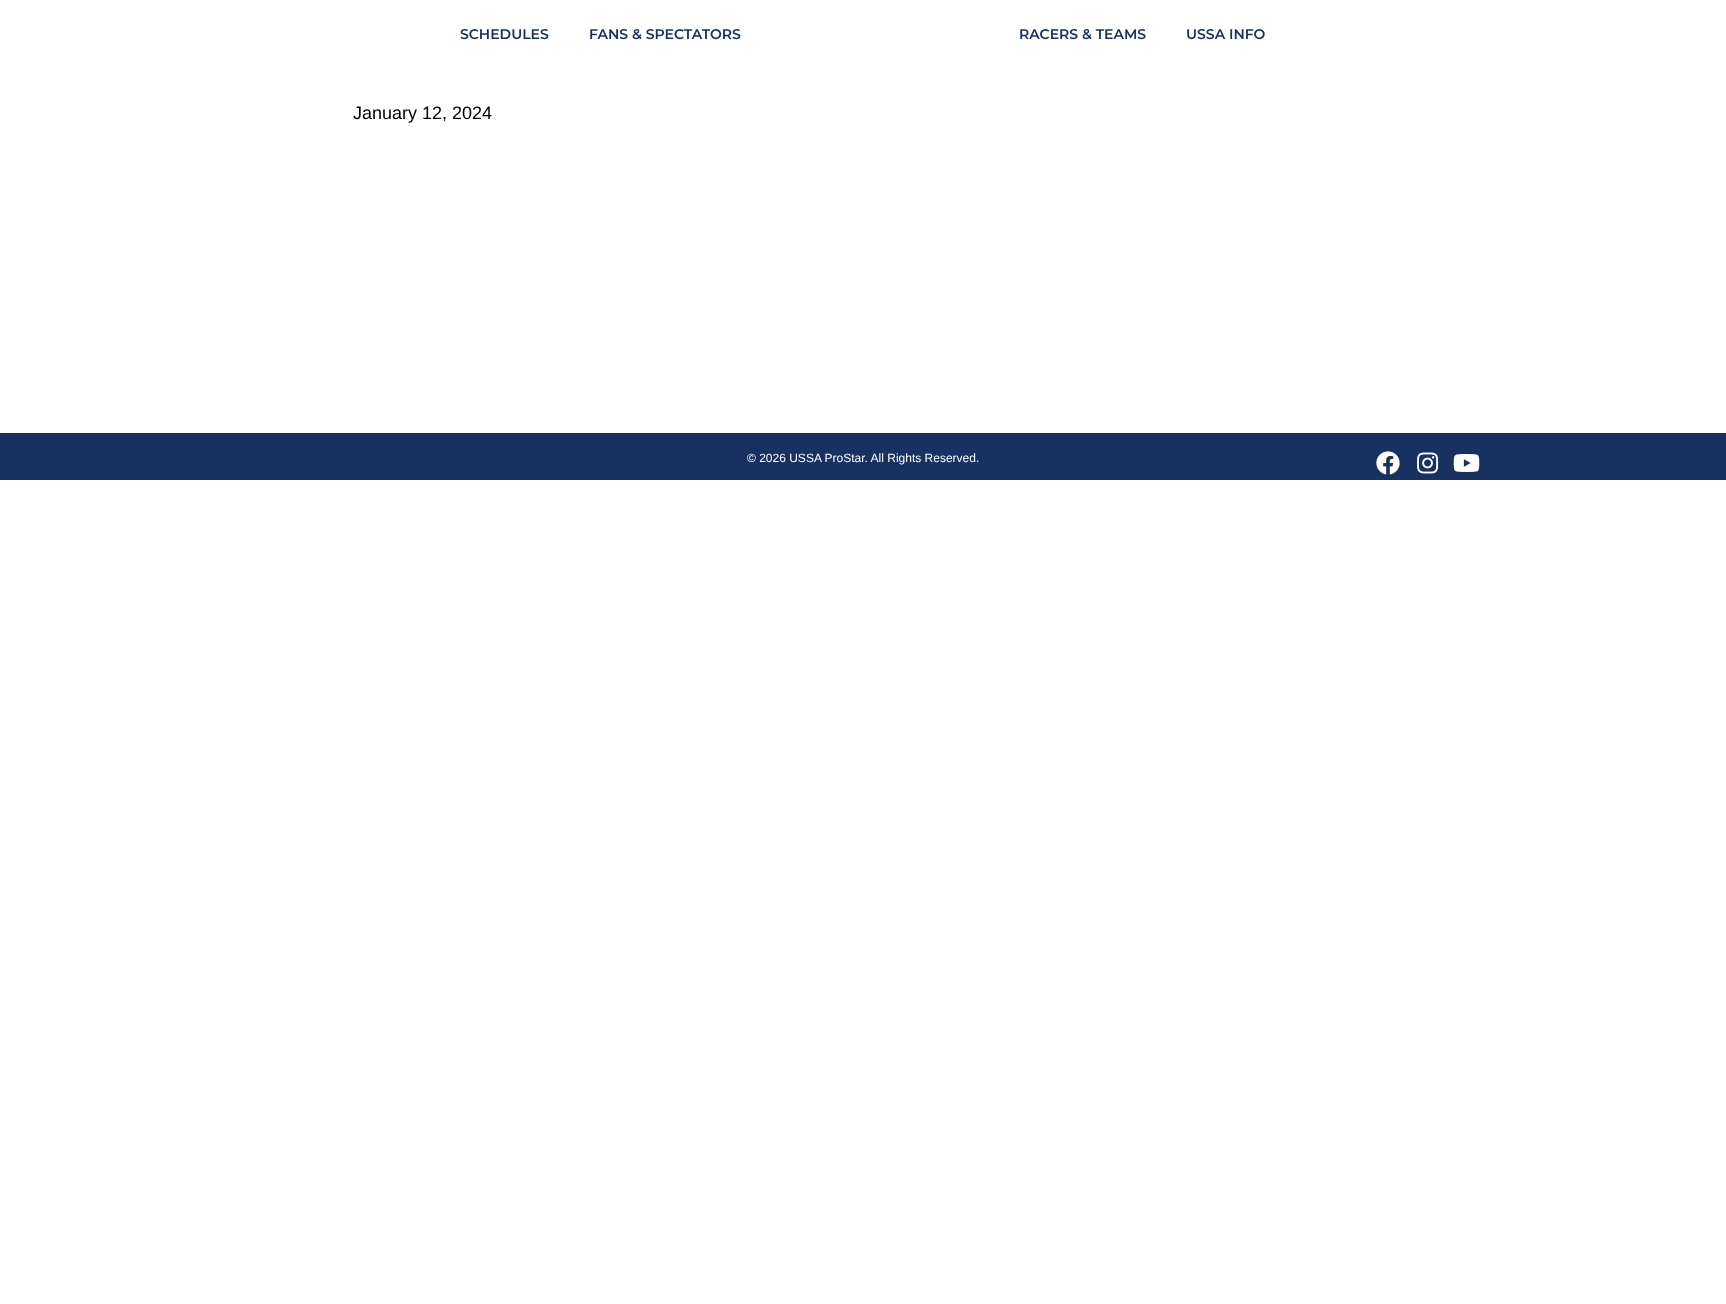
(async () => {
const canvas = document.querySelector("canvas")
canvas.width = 1726
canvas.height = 1304
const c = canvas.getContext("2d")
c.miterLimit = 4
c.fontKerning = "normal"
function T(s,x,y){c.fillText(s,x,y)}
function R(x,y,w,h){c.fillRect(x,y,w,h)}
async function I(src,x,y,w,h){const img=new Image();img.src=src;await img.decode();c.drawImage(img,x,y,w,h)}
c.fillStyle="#fff"
R(0,0,1726,1304)
c.font="100 14px Montserrat"
c.fillStyle="#173261"
T("SCHEDULES",460,39)
T("FANS & SPECTATORS",589,39)
T("RACERS & TEAMS",1019,39)
T("USSA INFO",1186,39)
c.font="18px Liberation Sans"
c.fillStyle="#000"
T("January 12, 2024",353,119)
c.fillStyle="#173261"
R(0,433,1726,47)
c.font="12px Liberation Sans"
c.fillStyle="#fff"
T("© 2026 USSA ProStar. All Rights Reserved.",747,462)
await I("1.png",1376,451,24,24)
await I("2.png",1417,452,22,22)
await I("3.png",1453,454,27,18)
})()
